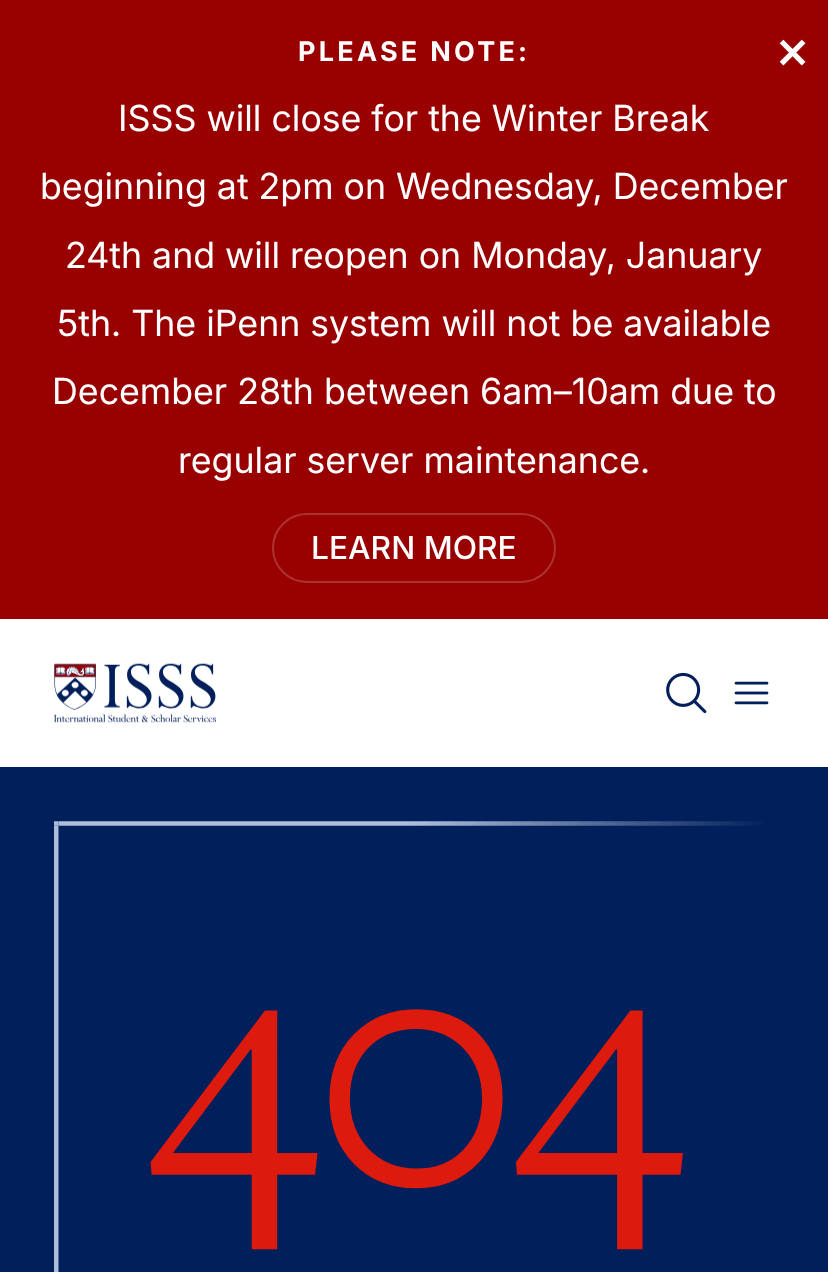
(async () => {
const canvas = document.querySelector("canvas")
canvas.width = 828
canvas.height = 1272
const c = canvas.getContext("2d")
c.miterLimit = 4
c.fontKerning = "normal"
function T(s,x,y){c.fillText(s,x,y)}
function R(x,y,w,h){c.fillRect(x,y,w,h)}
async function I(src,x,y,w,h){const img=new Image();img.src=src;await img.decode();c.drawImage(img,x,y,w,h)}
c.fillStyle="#fff"
R(0,0,828,1272)
c.fillStyle="#900"
R(0,0,828,619)
c.letterSpacing="3.25px"
c.font="bold 27px Inter"
c.fillStyle="#fff"
T("PLEASE NOTE:",298,61)
c.letterSpacing="0px"
c.font="500 54px 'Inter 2'"
T("×",775,68)
c.font="36px Inter"
T("ISSS will close for the Winter Break",118,131)
T("beginning at 2pm on Wednesday, December",40,199)
T("24th and will reopen on Monday, January",65,268)
T("5th. The iPenn system will not be available",57,336)
T("December 28th between 6am–10am due to",52,404)
T("regular server maintenance.",178,473)
c.beginPath()
c.roundRect(273,514,282,68,34)
c.strokeStyle="#ad3333"
c.lineWidth=2
c.stroke()
c.font="500 31.75px Inter"
T("LEARN MORE",311,559)
await I("1.png",54,663,162,60)
await I("2.png",666,672,41,42)
await I("3.png",734,681,35,24)
c.fillStyle="#011f5b"
R(0,767,828,505)
await I("4.png",54,821,709,451)
c.font="360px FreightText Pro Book"
c.fillStyle="#dc1a0e"
T("404",148,1183)
})()
